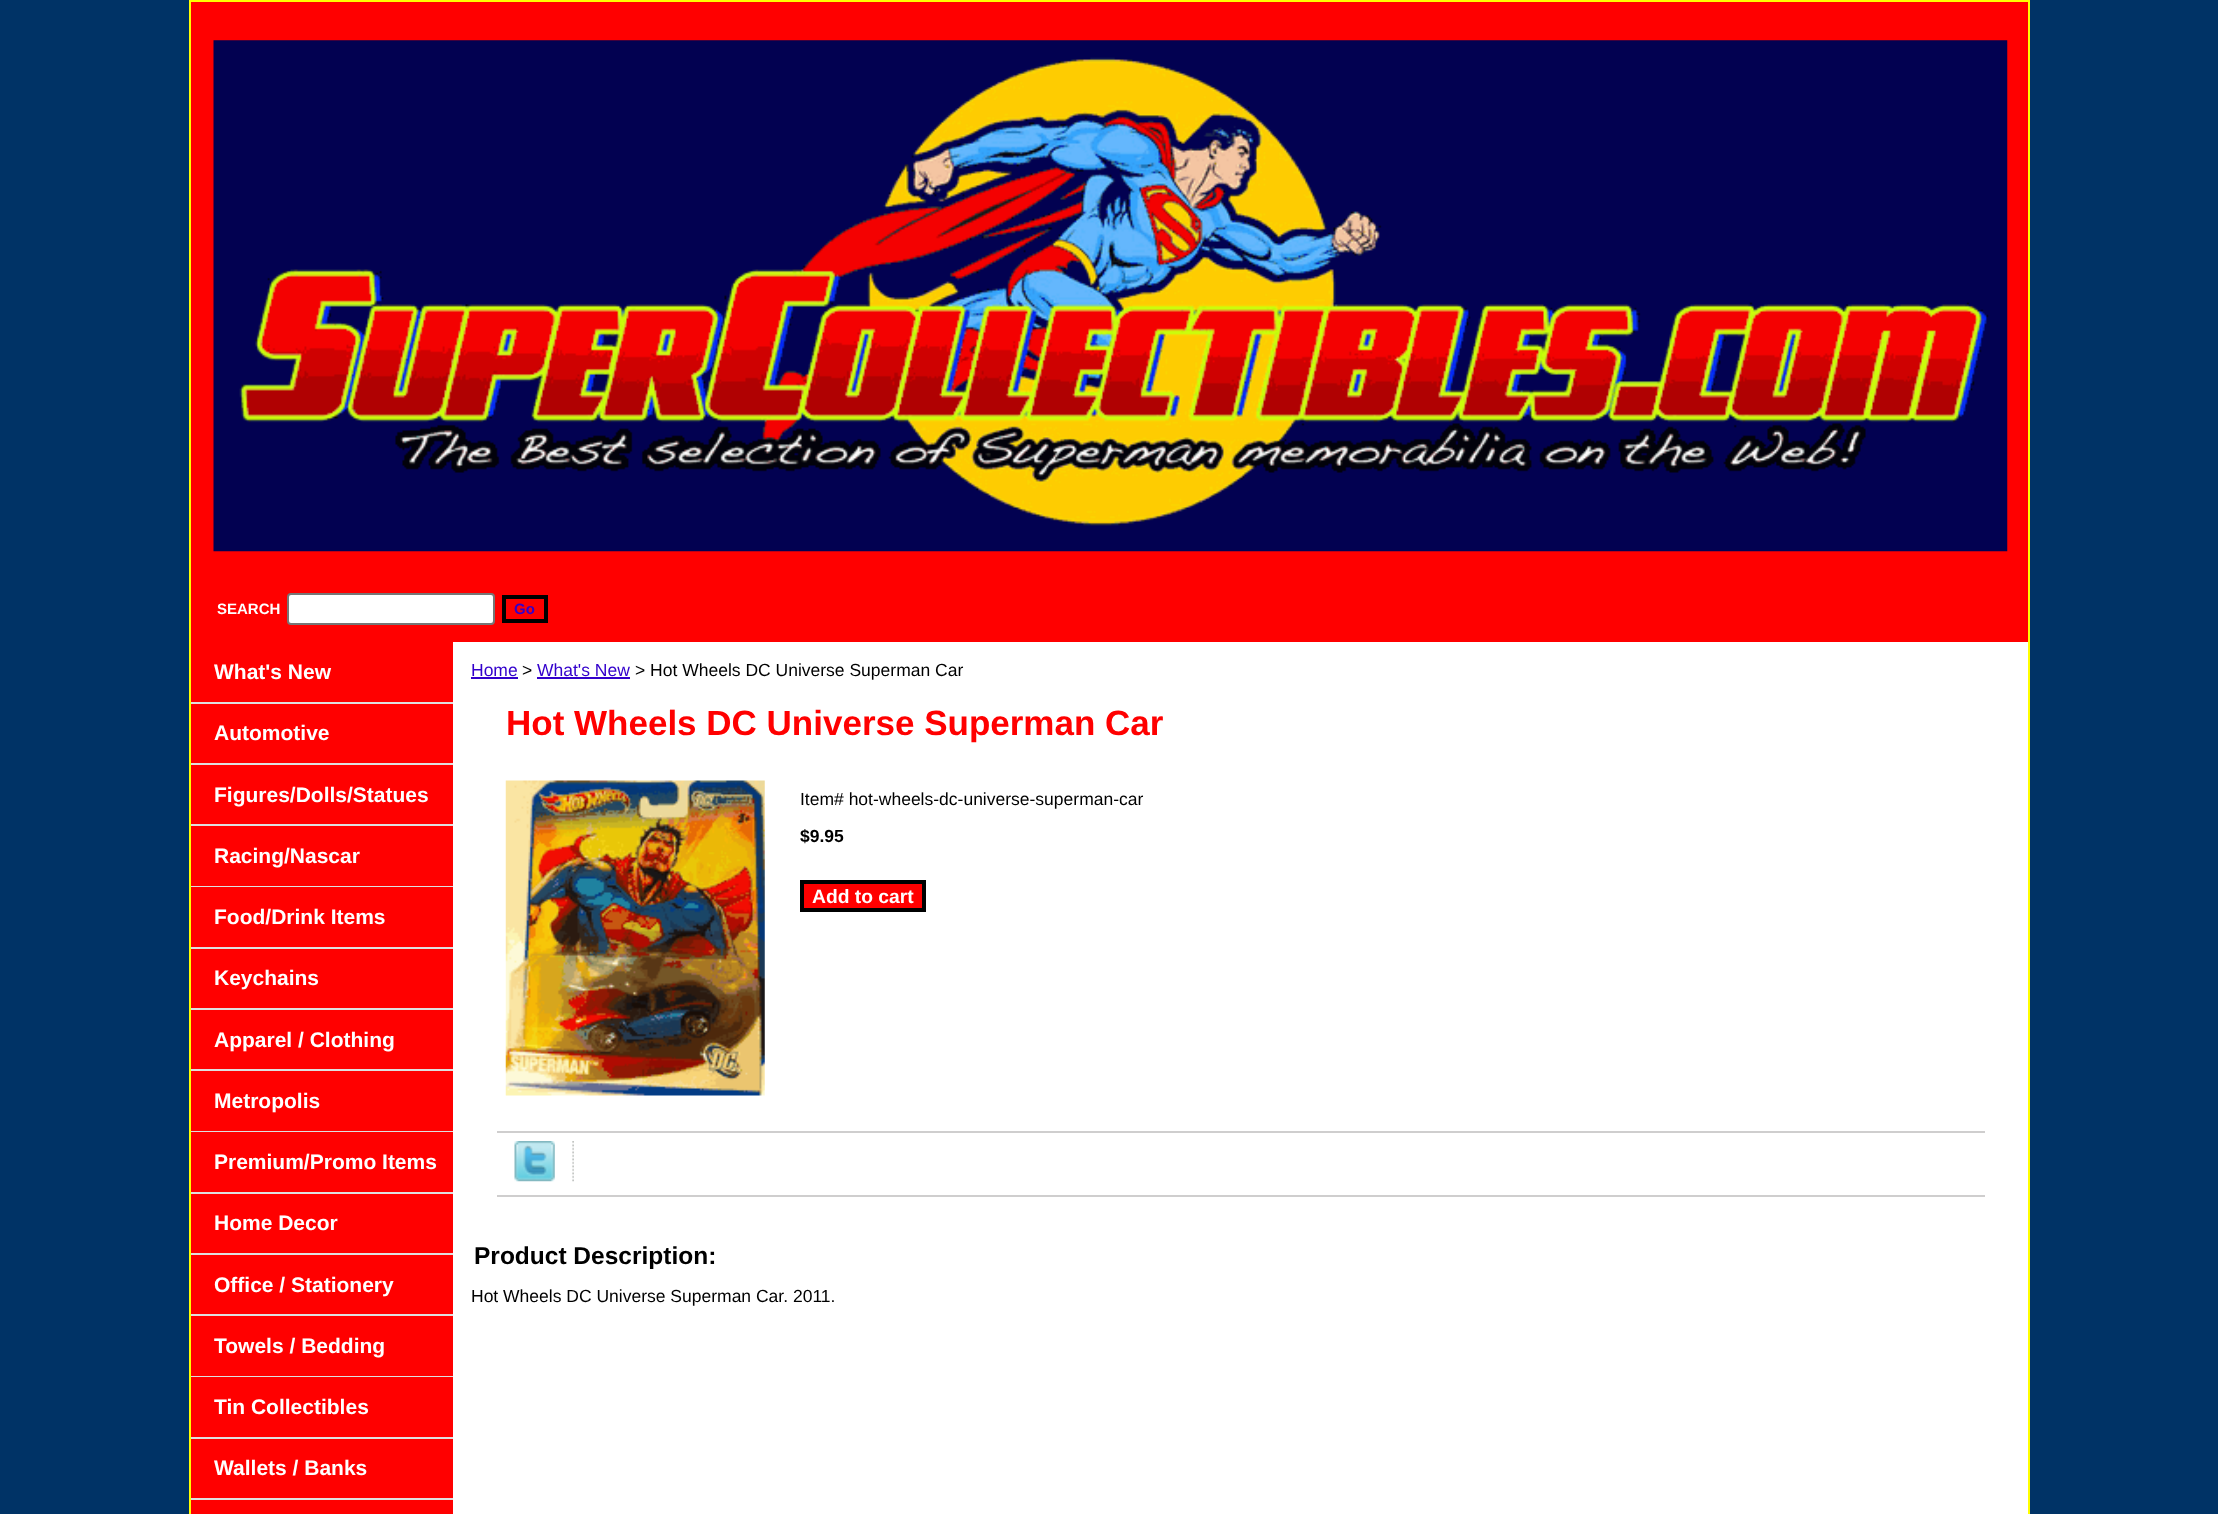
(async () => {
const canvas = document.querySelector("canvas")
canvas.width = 2218
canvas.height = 1514
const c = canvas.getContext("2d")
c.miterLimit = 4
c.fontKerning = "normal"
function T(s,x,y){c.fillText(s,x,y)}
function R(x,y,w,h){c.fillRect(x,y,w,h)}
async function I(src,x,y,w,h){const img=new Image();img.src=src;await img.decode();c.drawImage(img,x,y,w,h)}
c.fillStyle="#036"
R(0,0,2218,1514)
c.fillStyle="#fff"
R(453,642,1575,872)
c.strokeStyle="#ff0"
c.lineWidth=2
c.strokeRect(190,1,1839,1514)
c.fillStyle="#f00"
R(191,2,1837,640)
await I("1.png",213,40,1795,512)
c.font="bold 15px Liberation Sans"
c.fillStyle="#fff"
T("SEARCH",217,614)
c.beginPath()
c.roundRect(288,594,206,30,3)
c.fill()
c.strokeStyle="#767676"
c.stroke()
c.strokeStyle="#000"
c.lineWidth=4
c.strokeRect(504,597,42,24)
c.fillStyle="#30c"
T("Go",514,614)
c.fillStyle="#f00"
R(191,642,262,872)
c.fillStyle="#dfdfdf"
R(191,702,262,2)
c.font="bold 21px Liberation Sans"
c.fillStyle="#fff"
T("What's New",214,679)
c.fillStyle="#dfdfdf"
R(191,763,262,2)
c.fillStyle="#fff"
T("Automotive",214,740)
c.fillStyle="#dfdfdf"
R(191,824,262,2)
c.fillStyle="#fff"
T("Figures/Dolls/Statues",214,802)
c.fillStyle="#dfdfdf"
R(191,886,262,1)
c.fillStyle="#fff"
T("Racing/Nascar",214,863)
c.fillStyle="#dfdfdf"
R(191,947,262,2)
c.fillStyle="#fff"
T("Food/Drink Items",214,924)
c.fillStyle="#dfdfdf"
R(191,1008,262,2)
c.fillStyle="#fff"
T("Keychains",214,985)
c.fillStyle="#dfdfdf"
R(191,1069,262,2)
c.fillStyle="#fff"
T("Apparel / Clothing",214,1047)
c.fillStyle="#dfdfdf"
R(191,1131,262,1)
c.fillStyle="#fff"
T("Metropolis",214,1108)
c.fillStyle="#dfdfdf"
R(191,1192,262,2)
c.fillStyle="#fff"
T("Premium/Promo Items",214,1169)
c.fillStyle="#dfdfdf"
R(191,1253,262,2)
c.fillStyle="#fff"
T("Home Decor",214,1230)
c.fillStyle="#dfdfdf"
R(191,1314,262,2)
c.fillStyle="#fff"
T("Office / Stationery",214,1292)
c.fillStyle="#dfdfdf"
R(191,1376,262,1)
c.fillStyle="#fff"
T("Towels / Bedding",214,1353)
c.fillStyle="#dfdfdf"
R(191,1437,262,2)
c.fillStyle="#fff"
T("Tin Collectibles",214,1414)
c.fillStyle="#dfdfdf"
R(191,1498,262,2)
c.fillStyle="#fff"
T("Wallets / Banks",214,1475)
c.font="17.5px Liberation Sans"
c.fillStyle="#30c"
T("Home",471,676)
R(471,677,47,2)
c.fillStyle="#000"
T(">",522,676)
c.fillStyle="#30c"
T("What's New",537,676)
R(537,677,93,2)
c.fillStyle="#000"
T("> Hot Wheels DC Universe Superman Car",635,676)
c.font="bold 35px Liberation Sans"
c.fillStyle="#f00"
T("Hot Wheels DC Universe Superman Car",506,735)
await I("2.png",505,780,260,316)
c.font="17.5px Liberation Sans"
c.fillStyle="#000"
T("Item# hot-wheels-dc-universe-superman-car",800,805)
c.font="bold 17.5px Liberation Sans"
T("$9.95",800,842)
c.fillStyle="#f00"
c.beginPath()
c.rect(802,882,122,28)
c.fill()
c.stroke()
c.font="bold 19.25px Liberation Sans"
c.fillStyle="#fff"
T("Add to cart",812,903)
c.fillStyle="#cfcece"
R(497,1131,1488,2)
await I("3.png",514,1141,41,41)
await I("4.png",572,1141,2,41)
R(497,1195,1488,2)
c.font="bold 24.5px Liberation Sans"
c.fillStyle="#000"
T("Product Description:",474,1264)
c.font="17.5px Liberation Sans"
T("Hot Wheels DC Universe Superman Car. 2011.",471,1302)
})()
